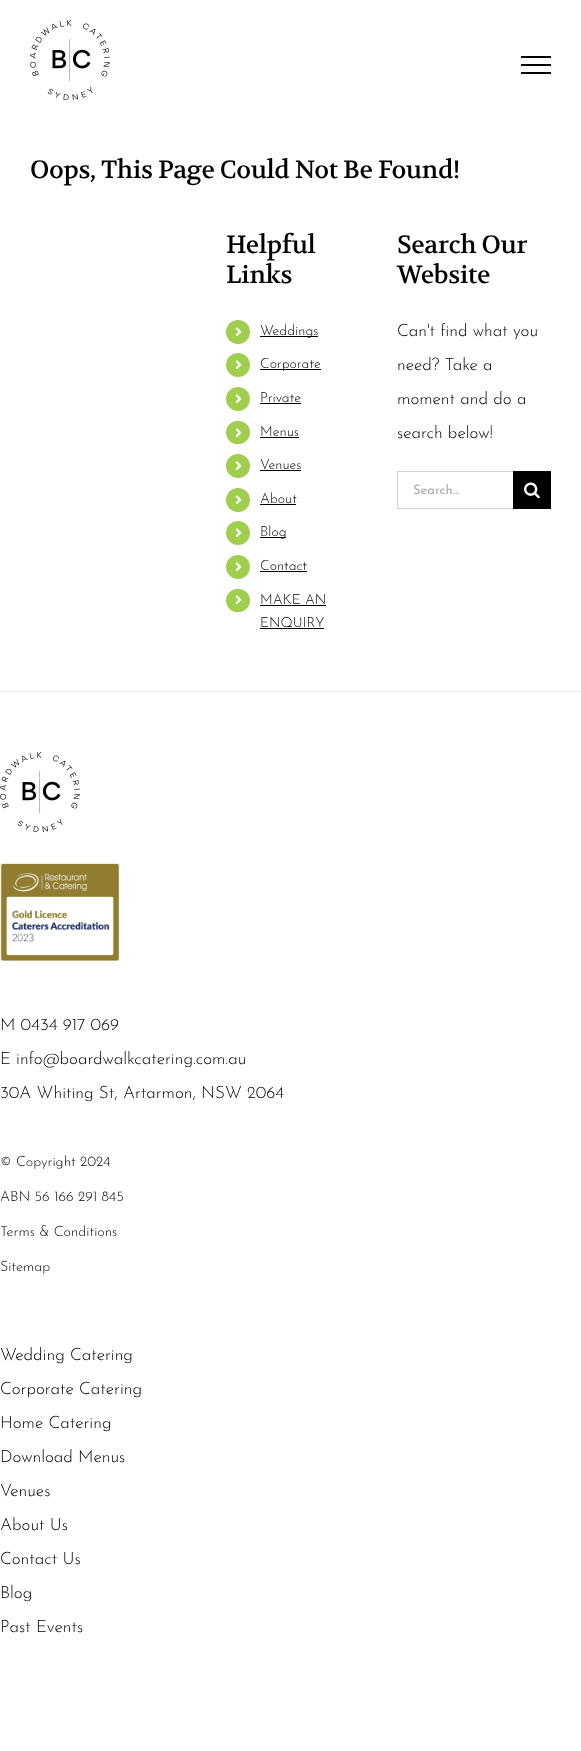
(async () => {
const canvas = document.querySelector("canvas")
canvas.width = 581
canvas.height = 1751
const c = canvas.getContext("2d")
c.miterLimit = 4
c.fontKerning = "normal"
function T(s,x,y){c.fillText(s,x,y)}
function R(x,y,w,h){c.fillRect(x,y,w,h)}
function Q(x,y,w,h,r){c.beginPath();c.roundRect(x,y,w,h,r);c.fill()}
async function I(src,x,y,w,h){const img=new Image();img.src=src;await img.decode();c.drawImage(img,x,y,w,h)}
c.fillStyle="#fff"
R(0,0,581,1751)
await I("1.png",30,20,80,80)
c.fillStyle="#000"
R(521,56,30,2)
R(521,64,30,2)
R(521,72,30,2)
c.letterSpacing="-0.4px"
c.font="25px Volkhov"
T("Oops, This Page Could Not Be Found!",30,178)
T("Helpful",226,253)
T("Links",226,283)
c.fillStyle="#a0ce4e"
c.beginPath()
c.arc(238,332,12,0,7)
c.fill()
await I("2.png",235,327,7,10)
c.fillStyle="#000"
R(260,336,58,1)
c.letterSpacing="0px"
c.font="300 14px Josefin Sans"
T("Weddings",260,335)
c.fillStyle="#a0ce4e"
c.beginPath()
c.arc(238,365,12,0,7)
c.fill()
await I("2.png",235,360,7,10)
c.fillStyle="#000"
R(260,369,61,1)
T("Corporate",260,368)
c.fillStyle="#a0ce4e"
c.beginPath()
c.arc(238,399,12,0,7)
c.fill()
await I("2.png",235,394,7,10)
c.fillStyle="#000"
T("Private",260,402)
R(260,403,41,1)
c.fillStyle="#a0ce4e"
Q(226,421,24,23,11.5)
await I("2.png",235,428,7,10)
c.fillStyle="#000"
T("Menus",260,436)
R(260,437,39,1)
c.fillStyle="#a0ce4e"
c.beginPath()
c.arc(238,466,12,0,7)
c.fill()
await I("2.png",235,461,7,10)
c.fillStyle="#000"
T("Venues",260,469)
R(260,470,41,1)
c.fillStyle="#a0ce4e"
c.beginPath()
c.arc(238,500,12,0,7)
c.fill()
await I("2.png",235,495,7,10)
c.fillStyle="#000"
T("About",260,503)
R(260,504,36,1)
c.fillStyle="#a0ce4e"
c.beginPath()
c.arc(238,533,12,0,7)
c.fill()
await I("2.png",235,528,7,10)
c.fillStyle="#000"
R(260,537,26,1)
T("Blog",260,536)
c.fillStyle="#a0ce4e"
c.beginPath()
c.arc(238,567,12,0,7)
c.fill()
await I("2.png",235,562,7,10)
c.fillStyle="#000"
T("Contact",260,570)
R(260,571,47,1)
c.fillStyle="#a0ce4e"
Q(226,589,24,23,11.5)
await I("2.png",235,595,7,10)
c.fillStyle="#000"
T("MAKE AN",260,604)
R(260,605,66,1)
T("ENQUIRY",260,627)
R(260,628,64,1)
c.letterSpacing="-0.4px"
c.font="25px Volkhov"
T("Search Our",397,253)
T("Website",397,283)
c.letterSpacing="0px"
c.font="300 17px Josefin Sans"
T("Can't find what you",397,336)
T("need? Take a",397,370)
T("moment and do a",397,404)
T("search below!",397,438)
c.fillStyle="#d2d2d2"
R(397,471,116,1)
R(397,508,116,1)
R(397,471,1,38)
c.font="13px Josefin Sans"
c.fillStyle="#aaa9a9"
T("Search...",413,494)
c.fillStyle="#000"
R(513,471,38,38)
await I("3.png",524,482,16,17)
c.fillStyle="#eee"
R(0,691,581,1)
await I("1.png",0,752,80,80)
await I("4.png",0,863,120,98)
c.font="300 17px Josefin Sans"
c.fillStyle="#000"
T("M 0434 917 069",0,1030)
T("E info@boardwalkcatering.com.au",0,1064)
T("30A Whiting St, Artarmon, NSW 2064",0,1098)
c.font="300 14.25px Josefin Sans"
T("© Copyright 2024",0,1166)
T("ABN 56 166 291 845",0,1201)
T("Terms & Conditions",0,1236)
T("Sitemap",0,1271)
c.font="300 17px Josefin Sans"
T("Wedding Catering",0,1360)
T("Corporate Catering",0,1394)
T("Home Catering",0,1428)
T("Download Menus",0,1462)
T("Venues",0,1496)
T("About Us",0,1530)
T("Contact Us",0,1564)
T("Blog",0,1598)
T("Past Events",0,1632)
})()
